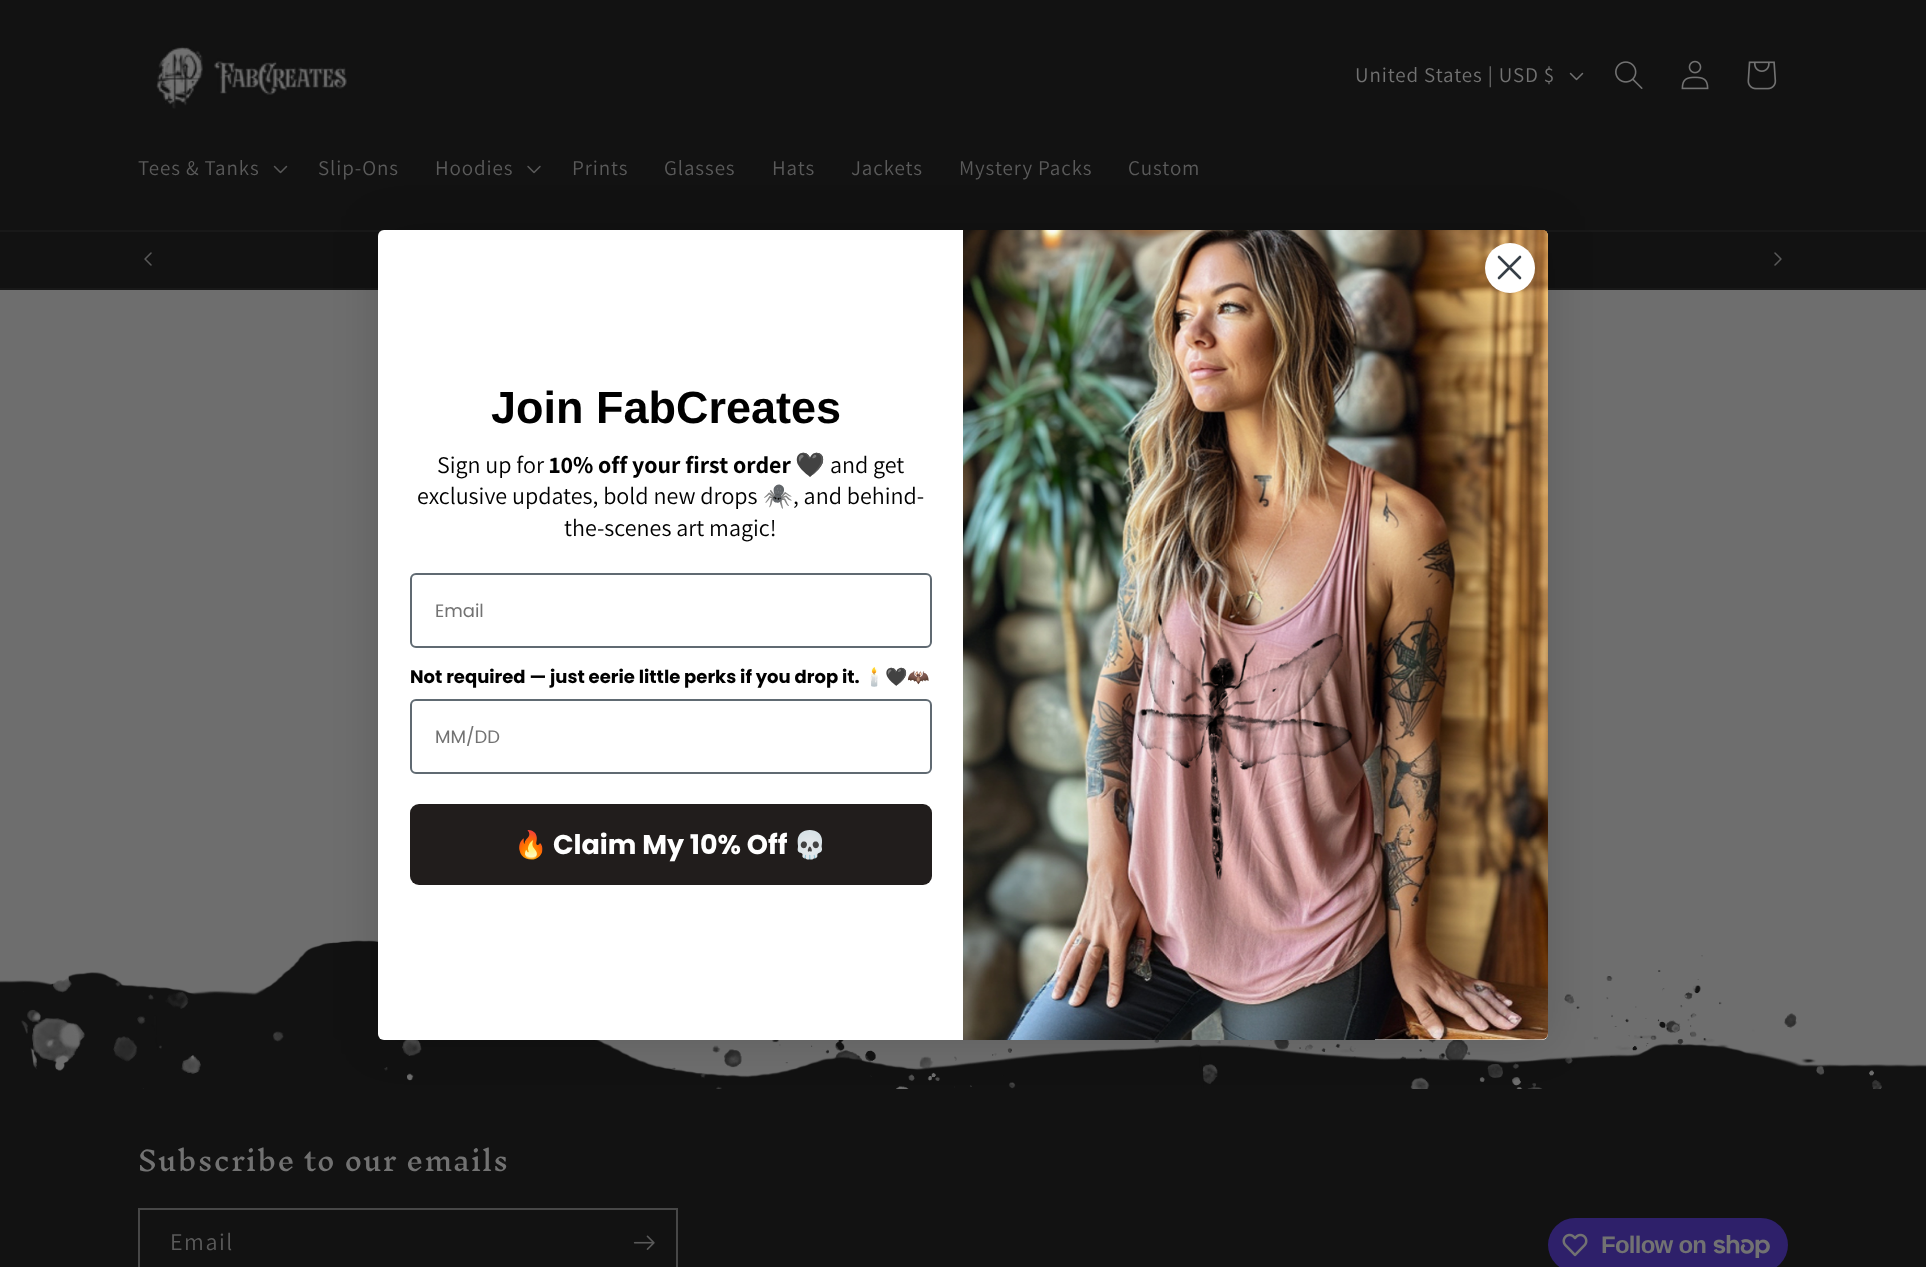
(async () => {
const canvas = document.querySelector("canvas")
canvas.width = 1926
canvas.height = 1267
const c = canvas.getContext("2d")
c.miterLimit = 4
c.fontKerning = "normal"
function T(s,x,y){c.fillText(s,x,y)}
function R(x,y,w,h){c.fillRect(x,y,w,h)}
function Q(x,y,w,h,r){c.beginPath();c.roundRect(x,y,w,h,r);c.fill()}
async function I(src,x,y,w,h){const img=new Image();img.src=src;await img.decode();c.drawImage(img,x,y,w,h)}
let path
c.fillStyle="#6e6e6e"
R(0,0,1926,1267)
c.fillStyle="#121212"
R(0,0,1926,230)
c.fillStyle="#191919"
R(0,230,1926,2)
await I("1.png",156,46,191,63)
c.letterSpacing="0.9px"
c.font="21px Assistant"
c.fillStyle="#727272"
T("United States | USD $",1355,82)
await I("2.png",1569,72,15,9)
await I("3.png",1615,61,28,28)
await I("4.png",1681,60,28,30)
await I("5.png",1747,61,30,29)
c.fillStyle="#5a5a5a"
T("Tees & Tanks",138,175)
await I("6.png",273,165,15,9)
T("Slip-Ons",318,175)
T("Hoodies",435,175)
await I("7.png",527,165,14,9)
T("Prints",572,175)
T("Glasses",664,175)
T("Hats",772,175)
T("Jackets",851,175)
T("Mystery Packs",959,175)
T("Custom",1128,175)
c.fillStyle="#121212"
R(0,232,1926,56)
c.fillStyle="#191919"
R(0,288,1926,2)
await I("8.png",144,252,8,14)
await I("9.png",1774,252,8,14)
await I("11.png",0,940,1926,149)
c.fillStyle="#121212"
R(0,1089,1926,178)
c.fillStyle="#00000026"
c.filter="blur(22.5px)"
c.beginPath()
c.roundRect(378,230,1170,810,6)
c.fill()
c.filter="none"
c.fillStyle="#fff"
Q(378,230,1170,810,6)
await I("10.png",963,230,585,810)
c.beginPath()
c.arc(1510,268,25,0,7)
c.fill()
path = new Path2D("M1499 257l21 21m-21 0l21-21z")
c.strokeStyle="#373f47"
c.lineWidth=2.6
c.lineCap="round"
c.lineJoin="round"
c.stroke(path)
c.letterSpacing="0px"
c.font="bold 45px Liberation Sans"
c.fillStyle="#000"
T("Join FabCreates",491,423)
c.font="24px Assistant"
T("Sign up for",437,473)
c.font="bold 24px Assistant"
T("10% off your first order",549,473)
c.font="24px Noto Color Emoji"
T("🖤",795,473)
c.font="24px Assistant"
T("and get",830,473)
T("exclusive updates, bold new drops",417,504)
c.font="24px Noto Color Emoji"
T("🕷️",763,504)
c.font="24px Assistant"
T(", and behind-",793,504)
T("the-scenes art magic!",564,536)
c.beginPath()
c.roundRect(411,574,520,73,5)
c.strokeStyle="#606a72"
c.lineWidth=2
c.lineJoin="miter"
c.stroke()
c.font="18px Poppins"
c.fillStyle="#727272"
T("Email",435,617)
c.font="bold 18px Poppins"
c.fillStyle="#000"
T("Not required — just eerie little perks if you drop it.",410,683)
c.font="bold 18px Noto Color Emoji"
T("🕯️🖤🦇",863,683)
c.beginPath()
c.roundRect(411,700,520,73,5)
c.stroke()
c.font="18px Poppins"
c.fillStyle="#727272"
T("MM/DD",435,743)
c.fillStyle="#211d1c"
Q(410,804,522,81,9)
c.font="bold 27px Noto Color Emoji"
c.fillStyle="#fff"
T("🔥",514,854)
c.font="bold 27px Poppins"
T("Claim My 10% Off",553,854)
c.font="bold 27px Noto Color Emoji"
T("💀",793,854)
c.letterSpacing="0.9px"
c.font="27px Inknut Antiqua"
c.fillStyle="#727272"
T("Subscribe to our emails",138,1171)
c.strokeStyle="#474747"
c.strokeRect(139,1209,538,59)
c.letterSpacing="1.5px"
c.font="24px Assistant"
c.fillStyle="#5a5a5a"
T("Email",170,1250)
await I("12.png",633,1235,22,15)
c.fillStyle="#2e206a"
Q(1548,1218,240,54,27)
await I("13.png",1562,1233,26,24)
c.letterSpacing="-0.75px"
c.font="bold 24px Liberation Sans"
c.fillStyle="#727272"
T("Follow on",1601,1253)
await I("14.png",1713,1235,57,23)
})()
